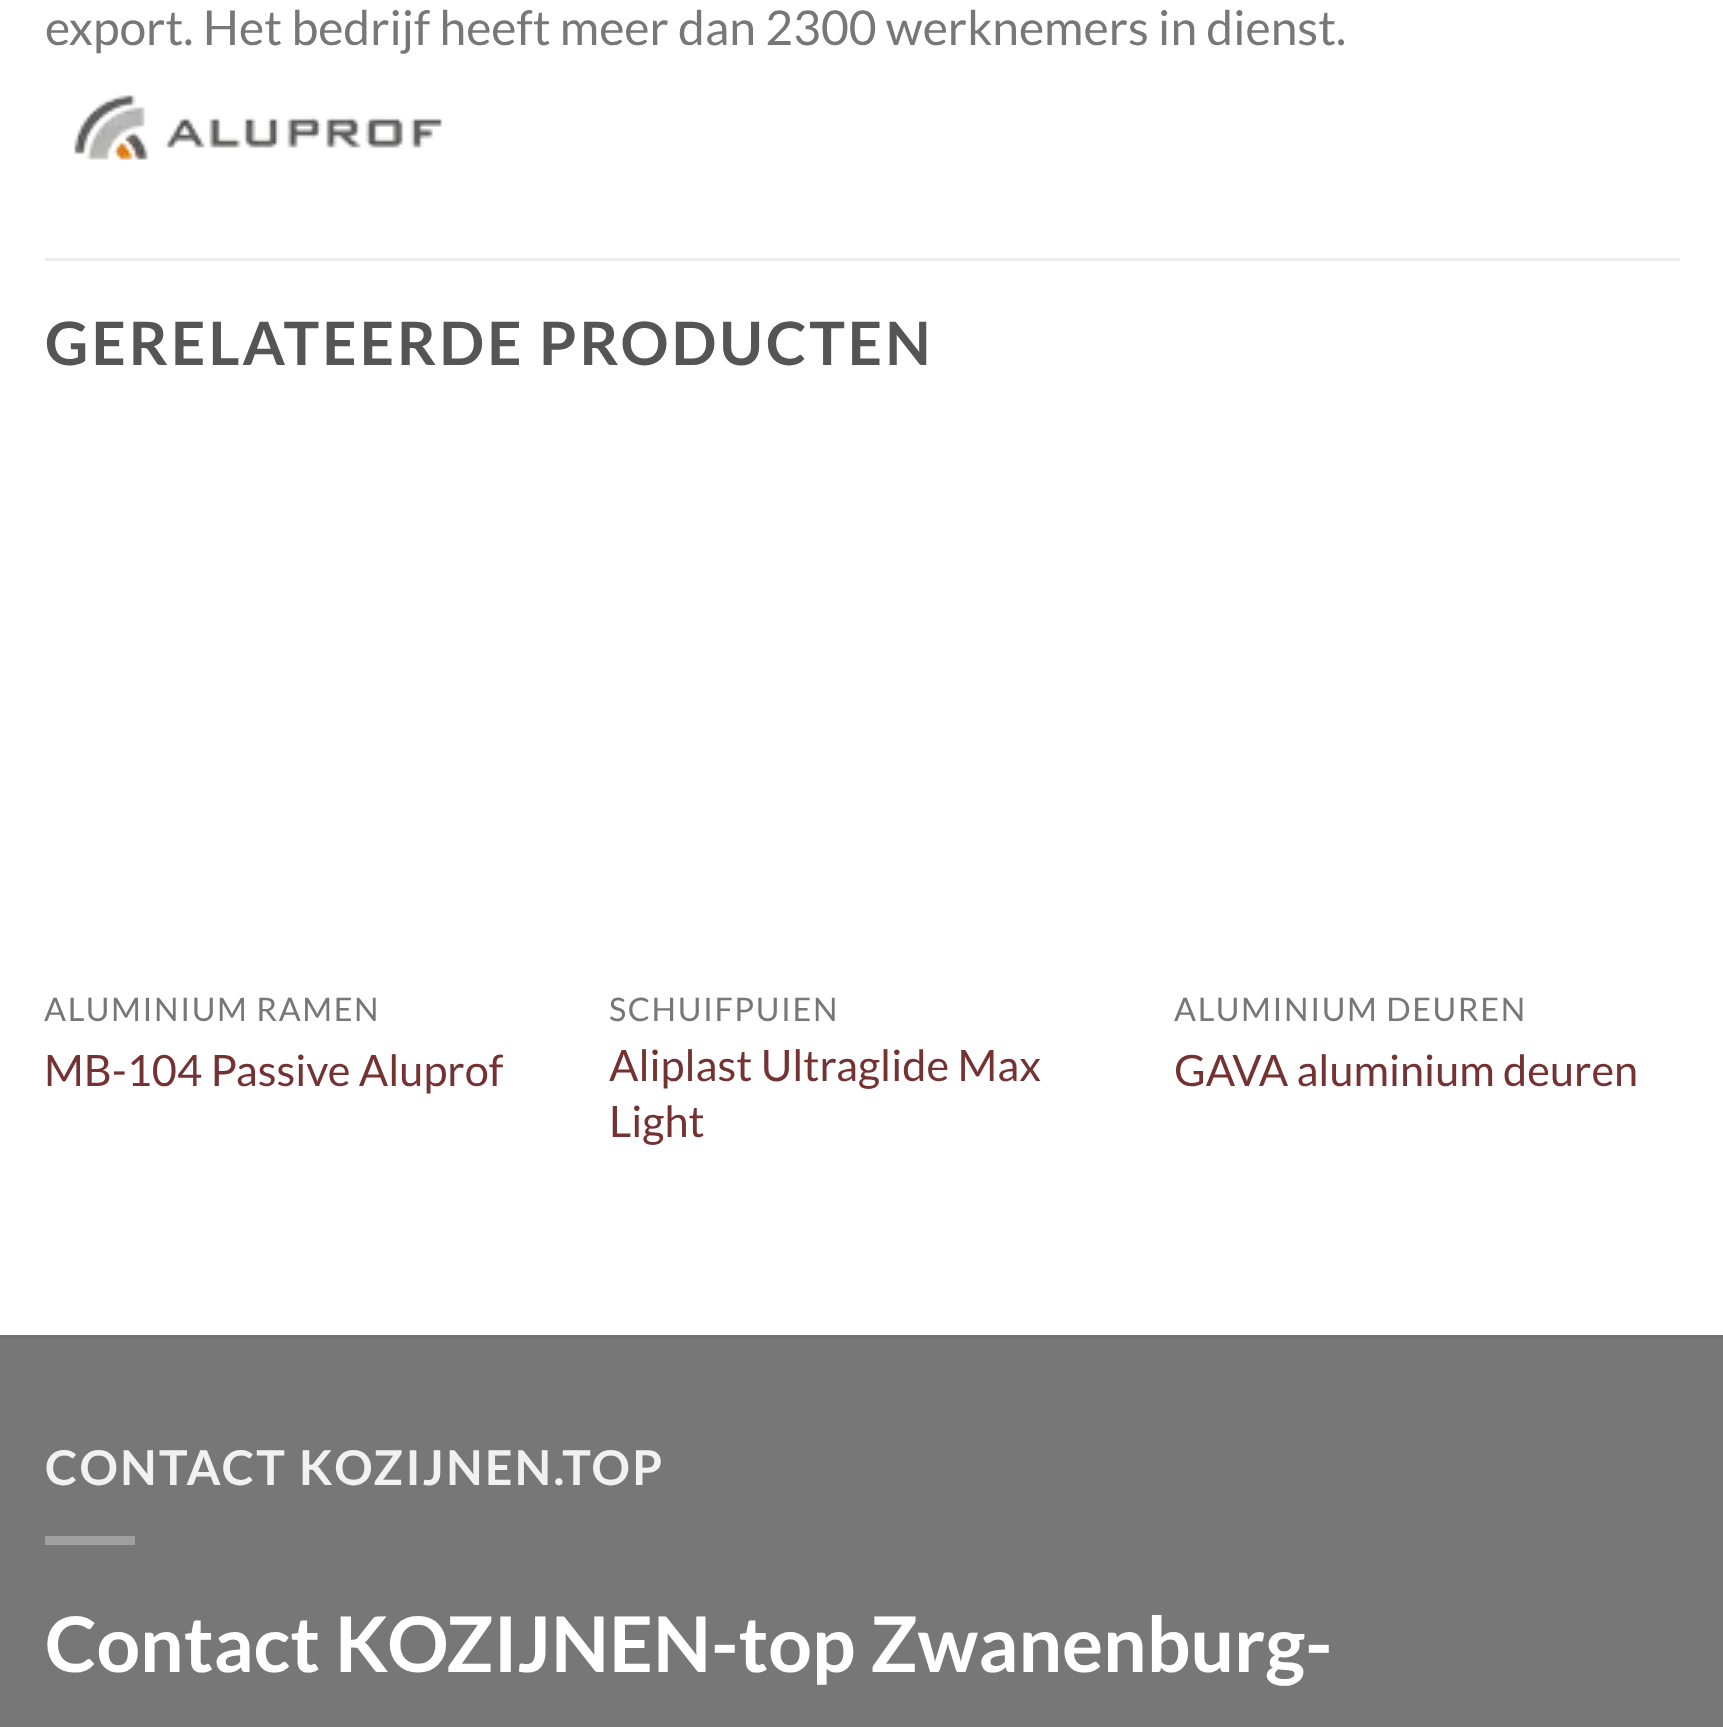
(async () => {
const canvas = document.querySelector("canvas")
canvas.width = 1723
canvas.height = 1727
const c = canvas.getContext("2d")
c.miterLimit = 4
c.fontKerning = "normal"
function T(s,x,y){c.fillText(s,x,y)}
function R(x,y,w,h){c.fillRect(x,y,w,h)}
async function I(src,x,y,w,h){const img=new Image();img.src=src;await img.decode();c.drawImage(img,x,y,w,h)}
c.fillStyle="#fff"
R(0,0,1723,1727)
c.font="48px Lato"
c.fillStyle="#777"
T("export. Het bedrijf heeft meer dan 2300 werknemers in dienst.",45,45)
await I("1.png",74,95,368,65)
c.fillStyle="#ececec"
R(45,258,1635,3)
c.letterSpacing="3px"
c.font="bold 60px Lato"
c.fillStyle="#555"
T("GERELATEERDE PRODUCTEN",45,365)
c.letterSpacing="1.6px"
c.font="32.4px Lato"
c.fillStyle="#777"
T("ALUMINIUM RAMEN",44,1021)
c.letterSpacing="0px"
c.font="43.25px Lato"
c.fillStyle="#753232"
T("MB-104 Passive Aluprof",44,1086)
c.letterSpacing="1.6px"
c.font="32.4px Lato"
c.fillStyle="#777"
T("SCHUIFPUIEN",609,1021)
c.letterSpacing="0px"
c.font="43.25px Lato"
c.fillStyle="#753232"
T("Aliplast Ultraglide Max",609,1081)
T("Light",609,1137)
c.letterSpacing="1.6px"
c.font="32.4px Lato"
c.fillStyle="#777"
T("ALUMINIUM DEUREN",1174,1021)
c.letterSpacing="0px"
c.font="43.25px Lato"
c.fillStyle="#753232"
T("GAVA aluminium deuren",1174,1086)
c.fillStyle="#777"
R(0,1338,1723,389)
c.fillStyle="#717171"
R(0,1335,1723,3)
c.letterSpacing="2.4px"
c.font="bold 48px Lato"
c.fillStyle="#f1f1f1"
T("CONTACT KOZIJNEN.TOP",45,1485)
c.fillStyle="#a0a0a0"
R(45,1536,90,9)
c.letterSpacing="0px"
c.font="bold 76.75px Lato"
c.fillStyle="#fff"
T("Contact KOZIJNEN-top Zwanenburg-",45,1672)
})()
